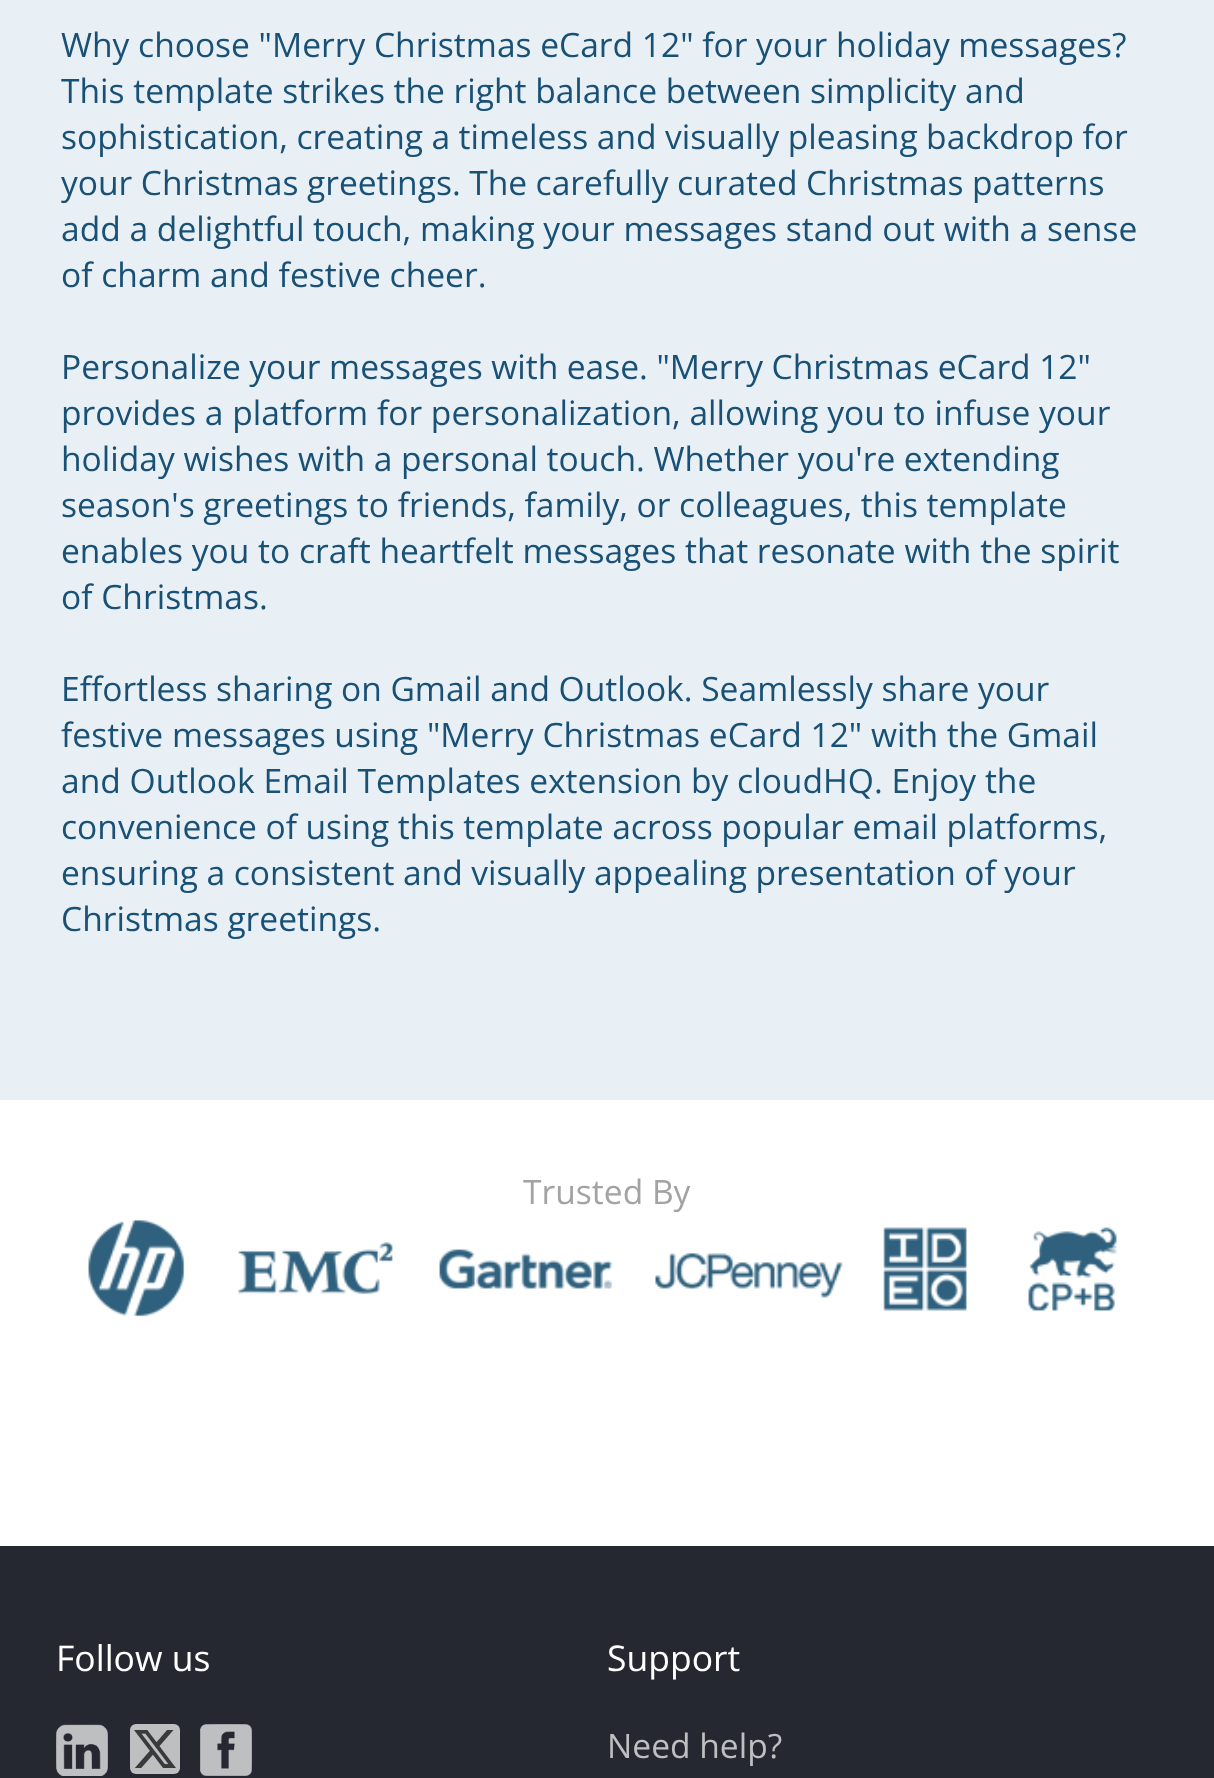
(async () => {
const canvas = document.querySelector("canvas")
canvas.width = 1214
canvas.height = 1778
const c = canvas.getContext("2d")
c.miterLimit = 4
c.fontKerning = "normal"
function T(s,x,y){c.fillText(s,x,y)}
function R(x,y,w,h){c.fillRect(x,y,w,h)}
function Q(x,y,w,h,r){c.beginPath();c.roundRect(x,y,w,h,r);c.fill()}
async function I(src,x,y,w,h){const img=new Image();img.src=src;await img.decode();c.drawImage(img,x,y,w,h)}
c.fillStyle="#fff"
R(0,0,1214,1778)
c.fillStyle="#e8f0f5"
R(0,0,1214,1100)
c.wordSpacing="-0.1px"
c.font="33.6px Open Sans"
c.fillStyle="#195076"
T("Why choose \"Merry Christmas eCard 12\" for your holiday messages?",61,57)
T("This template strikes the right balance between simplicity and",61,103)
c.wordSpacing="-0.25px"
T("sophistication, creating a timeless and visually pleasing backdrop for",61,149)
T("your Christmas greetings. The carefully curated Christmas patterns",61,195)
c.wordSpacing="0px"
T("add a delightful touch, making your messages stand out with a sense",61,241)
T("of charm and festive cheer.",61,287)
c.wordSpacing="-0.25px"
T("Personalize your messages with ease. \"Merry Christmas eCard 12\"",61,379)
c.wordSpacing="0px"
T("provides a platform for personalization, allowing you to infuse your",61,425)
c.wordSpacing="-0.1px"
T("holiday wishes with a personal touch. Whether you're extending",61,471)
T("season's greetings to friends, family, or colleagues, this template",61,517)
c.wordSpacing="0px"
T("enables you to craft heartfelt messages that resonate with the spirit",61,563)
T("of Christmas.",61,609)
c.wordSpacing="-0.1px"
T("Effortless sharing on Gmail and Outlook. Seamlessly share your",61,701)
c.wordSpacing="0px"
T("festive messages using \"Merry Christmas eCard 12\" with the Gmail",61,747)
T("and Outlook Email Templates extension by cloudHQ. Enjoy the",61,793)
c.wordSpacing="-0.25px"
T("convenience of using this template across popular email platforms,",61,839)
T("ensuring a consistent and visually appealing presentation of your",61,885)
c.wordSpacing="0px"
T("Christmas greetings.",61,931)
await I("1.png",88,1220,1029,97)
c.fillStyle="#a3a3a3"
T("Trusted By",523,1204)
c.fillStyle="#262831"
R(0,1546,1214,232)
c.font="35.5px Open Sans"
c.fillStyle="#fff"
T("Follow us",56,1671)
await I("2.png",56,1724,52,52)
c.fillStyle="#bebfc1"
Q(130,1724,50,50,6)
await I("3.png",134,1730,42,38)
await I("4.png",200,1724,52,52)
c.fillStyle="#fff"
T("Support",607,1671)
c.font="33.6px Open Sans"
c.fillStyle="#bebfc1"
T("Need help?",607,1758)
})()
